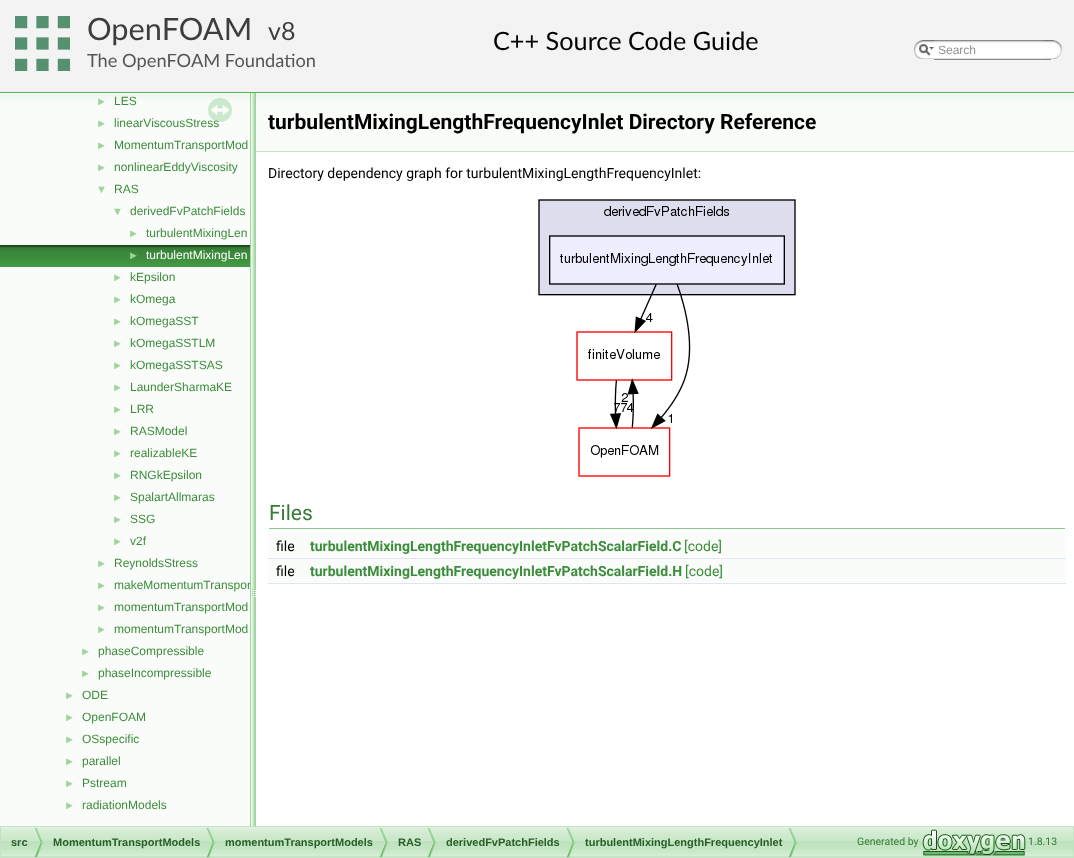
(async () => {
const canvas = document.querySelector("canvas")
canvas.width = 1074
canvas.height = 858
const c = canvas.getContext("2d")
c.miterLimit = 4
c.fontKerning = "normal"
function T(s,x,y){c.fillText(s,x,y)}
function R(x,y,w,h){c.fillRect(x,y,w,h)}
async function I(src,x,y,w,h){const img=new Image();img.src=src;await img.decode();c.drawImage(img,x,y,w,h)}
c.fillStyle="#fff"
R(0,0,1074,858)
c.fillStyle="#f3f3f3"
R(0,0,1074,92)
c.fillStyle="#53b453"
R(0,92,1074,1)
await I("1.png",15,16,55,55)
c.font="30.75px Lato"
c.fillStyle="#3d3d3d"
T("OpenFOAM",87,40)
c.font="25px Lato"
T("v8",268,40)
c.font="18.25px Lato"
c.fillStyle="#555"
T("The OpenFOAM Foundation",87,67)
await I("2.png",914,40,20,19)
await I("3.png",919,44,15,12)
await I("4.png",934,40,117,20)
c.font="12px Liberation Sans"
c.fillStyle="#909090"
T("Search",938,54)
await I("5.png",1044,40,18,19)
c.font="25.25px Lato"
c.fillStyle="#000"
T("C++ Source Code Guide",493,50)
c.fillStyle="#f9fcf9"
R(0,101,250,725)
await I("6.png",0,93,250,8)
c.font="11px Liberation Sans"
c.fillStyle="#9cd49c"
T("►",96,105)
c.font="12px Liberation Sans"
c.fillStyle="#3d8c3d"
T("LES",114,105)
c.font="11px Liberation Sans"
c.fillStyle="#9cd49c"
T("►",96,127)
c.font="12px Liberation Sans"
c.fillStyle="#3d8c3d"
T("linearViscousStress",114,127)
c.font="11px Liberation Sans"
c.fillStyle="#9cd49c"
T("►",96,149)
c.font="12px Liberation Sans"
c.fillStyle="#3d8c3d"
T("MomentumTransportMod",114,149)
c.font="11px Liberation Sans"
c.fillStyle="#9cd49c"
T("►",96,171)
c.font="12px Liberation Sans"
c.fillStyle="#3d8c3d"
T("nonlinearEddyViscosity",114,171)
c.font="11px Liberation Sans"
c.fillStyle="#9cd49c"
T("▼",96,193)
c.font="12px Liberation Sans"
c.fillStyle="#3d8c3d"
T("RAS",114,193)
c.font="11px Liberation Sans"
c.fillStyle="#9cd49c"
T("▼",112,215)
c.font="12px Liberation Sans"
c.fillStyle="#3d8c3d"
T("derivedFvPatchFields",130,215)
c.font="11px Liberation Sans"
c.fillStyle="#9cd49c"
T("►",128,237)
c.font="12px Liberation Sans"
c.fillStyle="#3d8c3d"
T("turbulentMixingLen",146,237)
await I("7.png",0,245,250,22)
c.font="11px Liberation Sans"
c.fillStyle="#9cd49c"
T("►",128,259)
c.font="12px Liberation Sans"
c.fillStyle="#fff"
T("turbulentMixingLen",146,259)
c.font="11px Liberation Sans"
c.fillStyle="#9cd49c"
T("►",112,281)
c.font="12px Liberation Sans"
c.fillStyle="#3d8c3d"
T("kEpsilon",130,281)
c.font="11px Liberation Sans"
c.fillStyle="#9cd49c"
T("►",112,303)
c.font="12px Liberation Sans"
c.fillStyle="#3d8c3d"
T("kOmega",130,303)
c.font="11px Liberation Sans"
c.fillStyle="#9cd49c"
T("►",112,325)
c.font="12px Liberation Sans"
c.fillStyle="#3d8c3d"
T("kOmegaSST",130,325)
c.font="11px Liberation Sans"
c.fillStyle="#9cd49c"
T("►",112,347)
c.font="12px Liberation Sans"
c.fillStyle="#3d8c3d"
T("kOmegaSSTLM",130,347)
c.font="11px Liberation Sans"
c.fillStyle="#9cd49c"
T("►",112,369)
c.font="12px Liberation Sans"
c.fillStyle="#3d8c3d"
T("kOmegaSSTSAS",130,369)
c.font="11px Liberation Sans"
c.fillStyle="#9cd49c"
T("►",112,391)
c.font="12px Liberation Sans"
c.fillStyle="#3d8c3d"
T("LaunderSharmaKE",130,391)
c.font="11px Liberation Sans"
c.fillStyle="#9cd49c"
T("►",112,413)
c.font="12px Liberation Sans"
c.fillStyle="#3d8c3d"
T("LRR",130,413)
c.font="11px Liberation Sans"
c.fillStyle="#9cd49c"
T("►",112,435)
c.font="12px Liberation Sans"
c.fillStyle="#3d8c3d"
T("RASModel",130,435)
c.font="11px Liberation Sans"
c.fillStyle="#9cd49c"
T("►",112,457)
c.font="12px Liberation Sans"
c.fillStyle="#3d8c3d"
T("realizableKE",130,457)
c.font="11px Liberation Sans"
c.fillStyle="#9cd49c"
T("►",112,479)
c.font="12px Liberation Sans"
c.fillStyle="#3d8c3d"
T("RNGkEpsilon",130,479)
c.font="11px Liberation Sans"
c.fillStyle="#9cd49c"
T("►",112,501)
c.font="12px Liberation Sans"
c.fillStyle="#3d8c3d"
T("SpalartAllmaras",130,501)
c.font="11px Liberation Sans"
c.fillStyle="#9cd49c"
T("►",112,523)
c.font="12px Liberation Sans"
c.fillStyle="#3d8c3d"
T("SSG",130,523)
c.font="11px Liberation Sans"
c.fillStyle="#9cd49c"
T("►",112,545)
c.font="12px Liberation Sans"
c.fillStyle="#3d8c3d"
T("v2f",130,545)
c.font="11px Liberation Sans"
c.fillStyle="#9cd49c"
T("►",96,567)
c.font="12px Liberation Sans"
c.fillStyle="#3d8c3d"
T("ReynoldsStress",114,567)
c.font="11px Liberation Sans"
c.fillStyle="#9cd49c"
T("►",96,589)
c.font="12px Liberation Sans"
c.fillStyle="#3d8c3d"
T("makeMomentumTranspor",114,589)
c.font="11px Liberation Sans"
c.fillStyle="#9cd49c"
T("►",96,611)
c.font="12px Liberation Sans"
c.fillStyle="#3d8c3d"
T("momentumTransportMod",114,611)
c.font="11px Liberation Sans"
c.fillStyle="#9cd49c"
T("►",96,633)
c.font="12px Liberation Sans"
c.fillStyle="#3d8c3d"
T("momentumTransportMod",114,633)
c.font="11px Liberation Sans"
c.fillStyle="#9cd49c"
T("►",80,655)
c.font="12px Liberation Sans"
c.fillStyle="#3d8c3d"
T("phaseCompressible",98,655)
c.font="11px Liberation Sans"
c.fillStyle="#9cd49c"
T("►",80,677)
c.font="12px Liberation Sans"
c.fillStyle="#3d8c3d"
T("phaseIncompressible",98,677)
c.font="11px Liberation Sans"
c.fillStyle="#9cd49c"
T("►",64,699)
c.font="12px Liberation Sans"
c.fillStyle="#3d8c3d"
T("ODE",82,699)
c.font="11px Liberation Sans"
c.fillStyle="#9cd49c"
T("►",64,721)
c.font="12px Liberation Sans"
c.fillStyle="#3d8c3d"
T("OpenFOAM",82,721)
c.font="11px Liberation Sans"
c.fillStyle="#9cd49c"
T("►",64,743)
c.font="12px Liberation Sans"
c.fillStyle="#3d8c3d"
T("OSspecific",82,743)
c.font="11px Liberation Sans"
c.fillStyle="#9cd49c"
T("►",64,765)
c.font="12px Liberation Sans"
c.fillStyle="#3d8c3d"
T("parallel",82,765)
c.font="11px Liberation Sans"
c.fillStyle="#9cd49c"
T("►",64,787)
c.font="12px Liberation Sans"
c.fillStyle="#3d8c3d"
T("Pstream",82,787)
c.font="11px Liberation Sans"
c.fillStyle="#9cd49c"
T("►",64,809)
c.font="12px Liberation Sans"
c.fillStyle="#3d8c3d"
T("radiationModels",82,809)
await I("8.png",208,98,24,24)
await I("9.png",250,93,6,733)
c.fillStyle="#f9fcf9"
R(256,101,818,50)
await I("10.png",256,93,818,8)
c.fillStyle="#c4e5c4"
R(256,151,818,1)
c.font="bold 21px Roboto"
c.fillStyle="#000"
T("turbulentMixingLengthFrequencyInlet Directory Reference",268,129)
c.font="14px Roboto"
T("Directory dependency graph for turbulentMixingLengthFrequencyInlet:",268,178)
await I("11.png",538,199,258,278)
c.fillStyle="#87cb87"
R(269,528,796,1)
c.font="21px Roboto"
c.fillStyle="#357b35"
T("Files",269,520)
c.fillStyle="#f9fcf9"
R(268,534,798,23)
c.font="14px Roboto"
c.fillStyle="#000"
T("file",276,551)
c.font="bold 14px Roboto"
c.fillStyle="#3d8c3d"
T("turbulentMixingLengthFrequencyInletFvPatchScalarField.C",310,551)
c.font="14px Roboto"
T("[code]",684,551)
c.fillStyle="#dee4f0"
R(268,558,798,1)
c.fillStyle="#f9fcf9"
R(268,559,798,23)
c.fillStyle="#000"
T("file",276,576)
c.font="bold 14px Roboto"
c.fillStyle="#3d8c3d"
T("turbulentMixingLengthFrequencyInletFvPatchScalarField.H",310,576)
c.font="14px Roboto"
T("[code]",685,576)
c.fillStyle="#dee4f0"
R(268,583,798,1)
await I("12.png",1,827,1072,30)
c.strokeStyle="#c2e4c2"
c.strokeRect(.5,826.5,1073,31)
await I("13.png",35,828,8,29)
c.font="bold 11px Liberation Sans"
c.fillStyle="#285d28"
T("src",11,846)
await I("13.png",207,828,8,29)
T("MomentumTransportModels",53,846)
await I("13.png",380,828,8,29)
T("momentumTransportModels",225,846)
await I("13.png",428,828,8,29)
T("RAS",398,846)
await I("13.png",567,828,8,29)
T("derivedFvPatchFields",446,846)
await I("13.png",789,828,8,29)
T("turbulentMixingLengthFrequencyInlet",585,846)
c.font="10.5px Roboto"
c.fillStyle="#357b35"
T("Generated by",857,845)
await I("14.png",922,829,104,27)
T("1.8.13",1028,845)
})()
